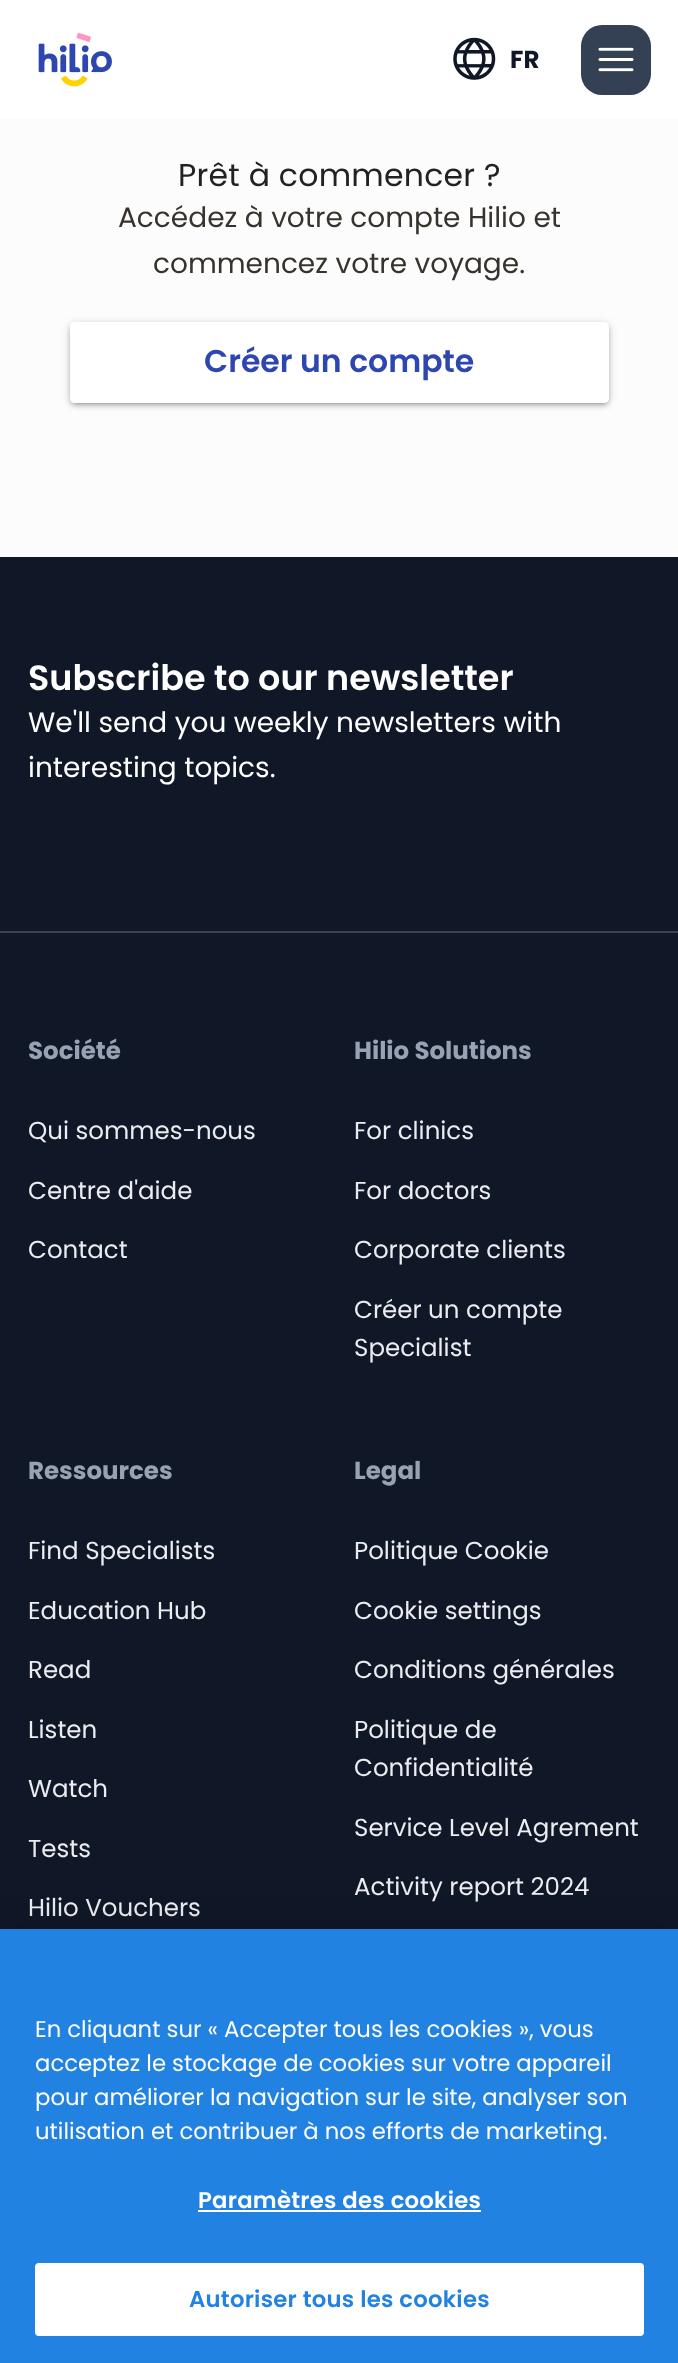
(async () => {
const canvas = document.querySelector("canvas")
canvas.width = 678
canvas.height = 2363
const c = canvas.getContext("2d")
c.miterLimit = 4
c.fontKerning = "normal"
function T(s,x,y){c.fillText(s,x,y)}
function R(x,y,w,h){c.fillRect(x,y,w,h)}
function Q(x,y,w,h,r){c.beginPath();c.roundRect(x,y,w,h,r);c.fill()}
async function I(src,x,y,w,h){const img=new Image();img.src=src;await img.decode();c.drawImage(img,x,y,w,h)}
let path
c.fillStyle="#fff"
R(0,0,678,2363)
await I("1.png",38,32,74,55)
await I("2.png",453,37,43,43)
c.font="bold 24.5px Poppins"
c.fillStyle="#101828"
T("FR",510,68)
c.fillStyle="#344054"
Q(581,25,70,70,21)
await I("3.png",598,47,36,25)
c.fillStyle="#fcfcfd"
R(0,119,678,438)
c.letterSpacing="0.25px"
c.font="31.5px Poppins"
c.fillStyle="#222"
T("Prêt à commencer ?",178,186)
c.letterSpacing="0px"
c.font="28px Poppins"
c.fillStyle="#37322c"
T("Accédez à votre compte Hilio et",118,227)
T("commencez votre voyage.",153,273)
c.fillStyle="#fff"
Q(70,322,539,81,5)
c.save()
path = new Path2D("M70 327h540v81h-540zm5-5h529c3 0 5 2 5 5v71c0 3-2 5-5 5h-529c-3 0-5-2-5-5v-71c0-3 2-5 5-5z")
c.clip(path,"evenodd")
c.fillStyle="#0000001f"
c.filter="blur(1px)"
c.beginPath()
c.roundRect(74,331,532,73,2)
c.fill()
c.filter="none"
c.restore()
c.save()
path = new Path2D("M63 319h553v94h-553zm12 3h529c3 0 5 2 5 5v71c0 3-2 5-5 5h-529c-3 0-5-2-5-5v-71c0-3 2-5 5-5z")
c.clip(path,"evenodd")
c.fillStyle="#00000024"
c.filter="blur(2px)"
c.beginPath()
c.roundRect(70,326,539,80,5)
c.fill()
c.filter="none"
c.restore()
c.save()
path = new Path2D("M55 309h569v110h-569zm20 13h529c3 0 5 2 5 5v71c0 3-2 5-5 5h-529c-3 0-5-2-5-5v-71c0-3 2-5 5-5z")
c.clip(path,"evenodd")
c.fillStyle="#00000033"
c.filter="blur(4.5px)"
c.beginPath()
c.roundRect(70,324,539,80,5)
c.fill()
c.filter="none"
c.restore()
c.font="600 31.5px Poppins"
c.fillStyle="#2e47b0"
T("Créer un compte",204,372)
c.fillStyle="#101828"
R(0,557,678,1372)
c.font="600 35px Poppins"
c.fillStyle="#fff"
T("Subscribe to our newsletter",28,690)
c.font="28px Poppins"
T("We'll send you weekly newsletters with",28,732)
T("interesting topics.",28,777)
c.fillStyle="#3c4250"
R(0,931,678,2)
c.font="bold 24.5px Poppins"
c.fillStyle="#98a2b3"
T("Société",28,1059)
c.font="24.5px Poppins"
c.fillStyle="#eaecf0"
T("Qui sommes-nous",28,1139)
T("Centre d'aide",28,1199)
T("Contact",28,1258)
c.font="bold 24.5px Poppins"
c.fillStyle="#98a2b3"
T("Hilio Solutions",354,1059)
c.font="24.5px Poppins"
c.fillStyle="#eaecf0"
T("For clinics",354,1139)
T("For doctors",354,1199)
T("Corporate clients",354,1258)
T("Créer un compte",354,1318)
T("Specialist",354,1356)
c.font="bold 24.5px Poppins"
c.fillStyle="#98a2b3"
T("Ressources",28,1479)
c.font="24.5px Poppins"
c.fillStyle="#eaecf0"
T("Find Specialists",28,1559)
T("Education Hub",28,1619)
T("Read",28,1678)
T("Listen",28,1738)
T("Watch",28,1797)
T("Tests",28,1857)
T("Hilio Vouchers",28,1916)
c.font="bold 24.5px Poppins"
c.fillStyle="#98a2b3"
T("Legal",354,1479)
c.font="24.5px Poppins"
c.fillStyle="#eaecf0"
T("Politique Cookie",354,1559)
T("Cookie settings",354,1619)
T("Conditions générales",354,1678)
T("Politique de",354,1738)
T("Confidentialité",354,1776)
T("Service Level Agrement",354,1836)
T("Activity report 2024",354,1895)
c.fillStyle="#00000033"
c.filter="blur(16px)"
c.beginPath()
c.rect(0,1929,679,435)
c.fill()
c.filter="none"
c.fillStyle="#2282e2"
R(0,1929,678,434)
c.font="22.75px Poppins"
c.fillStyle="#fff"
T("En cliquant sur « Accepter tous les cookies », vous",35,2037)
T("acceptez le stockage de cookies sur votre appareil",35,2071)
T("pour améliorer la navigation sur le site, analyser son",35,2105)
T("utilisation et contribuer à nos efforts de marketing.",35,2139)
c.letterSpacing="0.25px"
c.font="600 22.75px Poppins"
T("Paramètres des cookies",198,2208)
R(198,2210,283,2)
c.beginPath()
c.roundRect(36,2264,607,71,3)
c.fill()
c.strokeStyle="#fff"
c.lineWidth=2
c.stroke()
c.fillStyle="#2282e2"
T("Autoriser tous les cookies",189,2307)
})()
